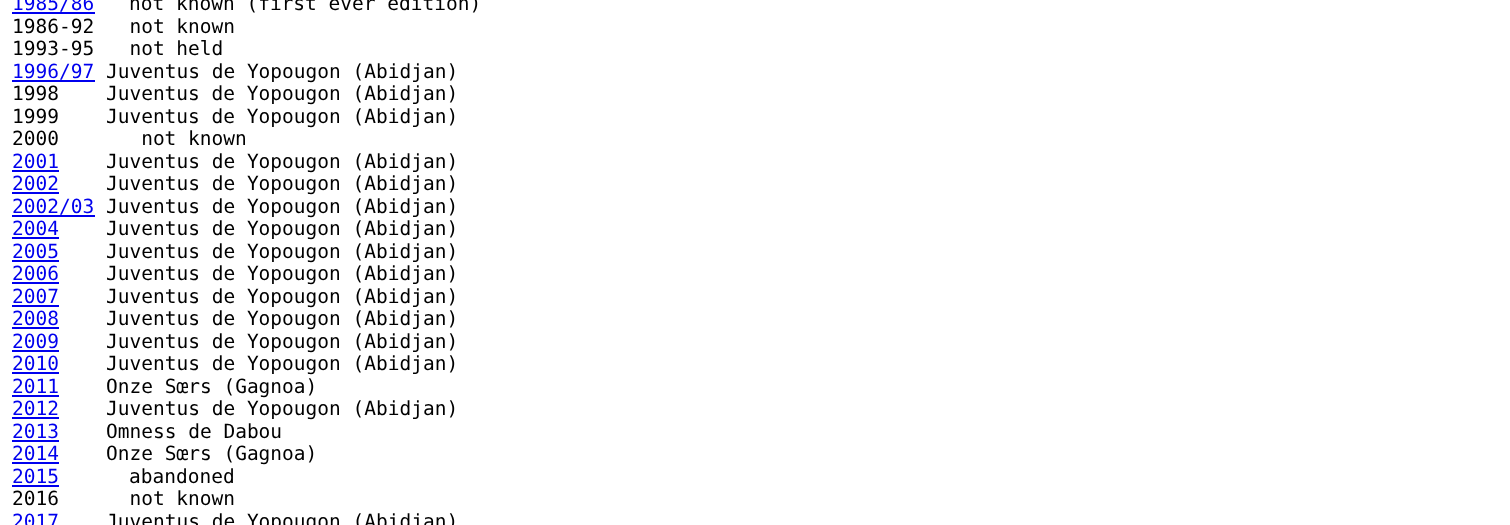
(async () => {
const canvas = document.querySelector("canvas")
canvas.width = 1510
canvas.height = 525
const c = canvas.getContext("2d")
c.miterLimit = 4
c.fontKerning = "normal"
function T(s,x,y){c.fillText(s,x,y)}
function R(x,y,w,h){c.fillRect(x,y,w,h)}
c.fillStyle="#fff"
R(0,0,1510,525)
c.font="19.5px DejaVu Sans Mono"
c.fillStyle="#00e"
T("1985/86",12,10)
R(12,12,83,2)
c.fillStyle="#000"
T("not known (first ever edition)",129,10)
T("1986-92   not known",12,33)
T("1993-95   not held",12,55)
c.fillStyle="#00e"
T("1996/97",12,78)
R(12,80,83,2)
c.fillStyle="#000"
T("Juventus de Yopougon (Abidjan)",106,78)
T("1998    Juventus de Yopougon (Abidjan)",12,100)
T("1999    Juventus de Yopougon (Abidjan)",12,123)
T("2000       not known",12,145)
c.fillStyle="#00e"
T("2001",12,168)
R(12,170,47,2)
c.fillStyle="#000"
T("Juventus de Yopougon (Abidjan)",106,168)
c.fillStyle="#00e"
T("2002",12,190)
R(12,192,47,2)
c.fillStyle="#000"
T("Juventus de Yopougon (Abidjan)",106,190)
c.fillStyle="#00e"
T("2002/03",12,213)
R(12,215,83,2)
c.fillStyle="#000"
T("Juventus de Yopougon (Abidjan)",106,213)
c.fillStyle="#00e"
T("2004",12,235)
R(12,237,47,2)
c.fillStyle="#000"
T("Juventus de Yopougon (Abidjan)",106,235)
c.fillStyle="#00e"
T("2005",12,258)
R(12,260,47,2)
c.fillStyle="#000"
T("Juventus de Yopougon (Abidjan)",106,258)
c.fillStyle="#00e"
T("2006",12,280)
R(12,282,47,2)
c.fillStyle="#000"
T("Juventus de Yopougon (Abidjan)",106,280)
c.fillStyle="#00e"
T("2007",12,303)
R(12,305,47,2)
c.fillStyle="#000"
T("Juventus de Yopougon (Abidjan)",106,303)
c.fillStyle="#00e"
T("2008",12,325)
R(12,327,47,2)
c.fillStyle="#000"
T("Juventus de Yopougon (Abidjan)",106,325)
c.fillStyle="#00e"
T("2009",12,348)
R(12,350,47,2)
c.fillStyle="#000"
T("Juventus de Yopougon (Abidjan)",106,348)
c.fillStyle="#00e"
T("2010",12,370)
R(12,372,47,2)
c.fillStyle="#000"
T("Juventus de Yopougon (Abidjan)",106,370)
c.fillStyle="#00e"
T("2011",12,393)
R(12,395,47,2)
c.fillStyle="#000"
T("Onze Sœrs (Gagnoa)",106,393)
c.fillStyle="#00e"
T("2012",12,415)
R(12,417,47,2)
c.fillStyle="#000"
T("Juventus de Yopougon (Abidjan)",106,415)
c.fillStyle="#00e"
T("2013",12,438)
R(12,440,47,2)
c.fillStyle="#000"
T("Omness de Dabou",106,438)
c.fillStyle="#00e"
T("2014",12,460)
R(12,462,47,2)
c.fillStyle="#000"
T("Onze Sœrs (Gagnoa)",106,460)
c.fillStyle="#00e"
T("2015",12,483)
R(12,485,47,2)
c.fillStyle="#000"
T("abandoned",129,483)
T("2016      not known",12,505)
c.fillStyle="#00e"
T("2017",12,528)
c.fillStyle="#000"
T("Juventus de Yopougon (Abidjan)",106,528)
})()
